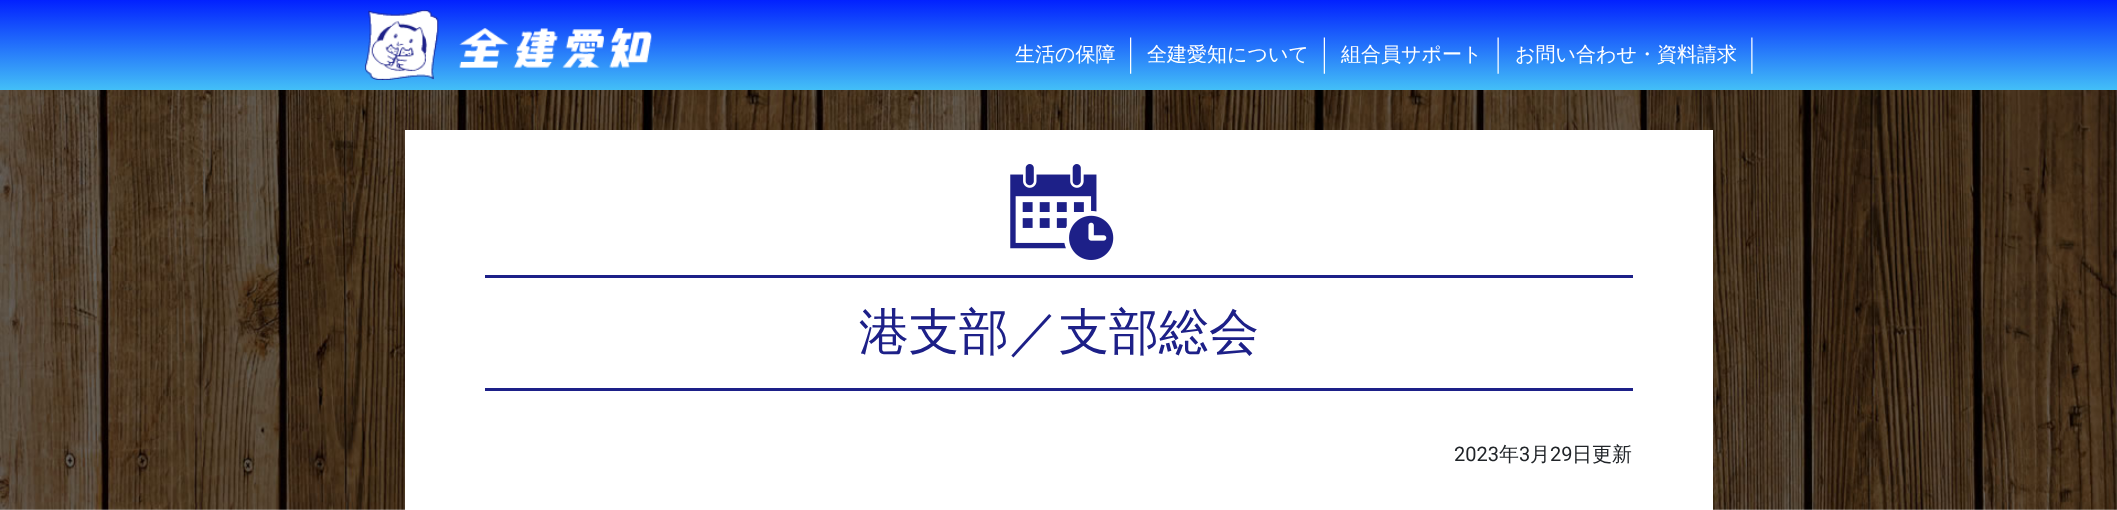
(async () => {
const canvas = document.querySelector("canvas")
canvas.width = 2117
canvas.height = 510
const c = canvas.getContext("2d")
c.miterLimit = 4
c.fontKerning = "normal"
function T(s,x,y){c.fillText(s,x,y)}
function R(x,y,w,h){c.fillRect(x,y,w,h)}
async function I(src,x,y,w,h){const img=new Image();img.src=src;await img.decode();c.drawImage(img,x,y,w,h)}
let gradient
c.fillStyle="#fff"
R(0,0,2117,510)
gradient = c.createLinearGradient(1059,0,1059,90)
gradient.addColorStop(0,"#020024")
gradient.addColorStop(0,"#0221fe")
gradient.addColorStop(1,"#43bff7")
c.fillStyle = gradient
R(0,0,2117,90)
await I("1.png",365,10,287,70)
await I("2.png",1130,37,2,37)
c.font="500 20px WenQuanYi Zen Hei"
c.fillStyle="#fff"
T("生活の保障",1015,61)
await I("3.png",1323,37,2,37)
T("全建愛知について",1147,61)
await I("4.png",1497,37,2,37)
T("組合員サポート",1341,61)
await I("5.png",1751,37,2,37)
T("お問い合わせ・資料請求",1515,61)
await I("6.png",0,90,2117,420)
R(405,130,1308,380)
await I("7.png",1010,164,104,96)
c.fillStyle="#1d2088"
R(485,275,1148,3)
R(485,388,1148,3)
c.font="500 50px WenQuanYi Zen Hei"
T("港支部／支部総会",859,349)
c.font="20px Roboto"
c.fillStyle="#212529"
T("2023",1454,461)
c.font="500 20px WenQuanYi Zen Hei"
T("年",1499,461)
c.font="20px Roboto"
T("3",1519,461)
c.font="500 20px WenQuanYi Zen Hei"
T("月",1530,461)
c.font="20px Roboto"
T("29",1550,461)
c.font="500 20px WenQuanYi Zen Hei"
T("日更新",1572,461)
})()
